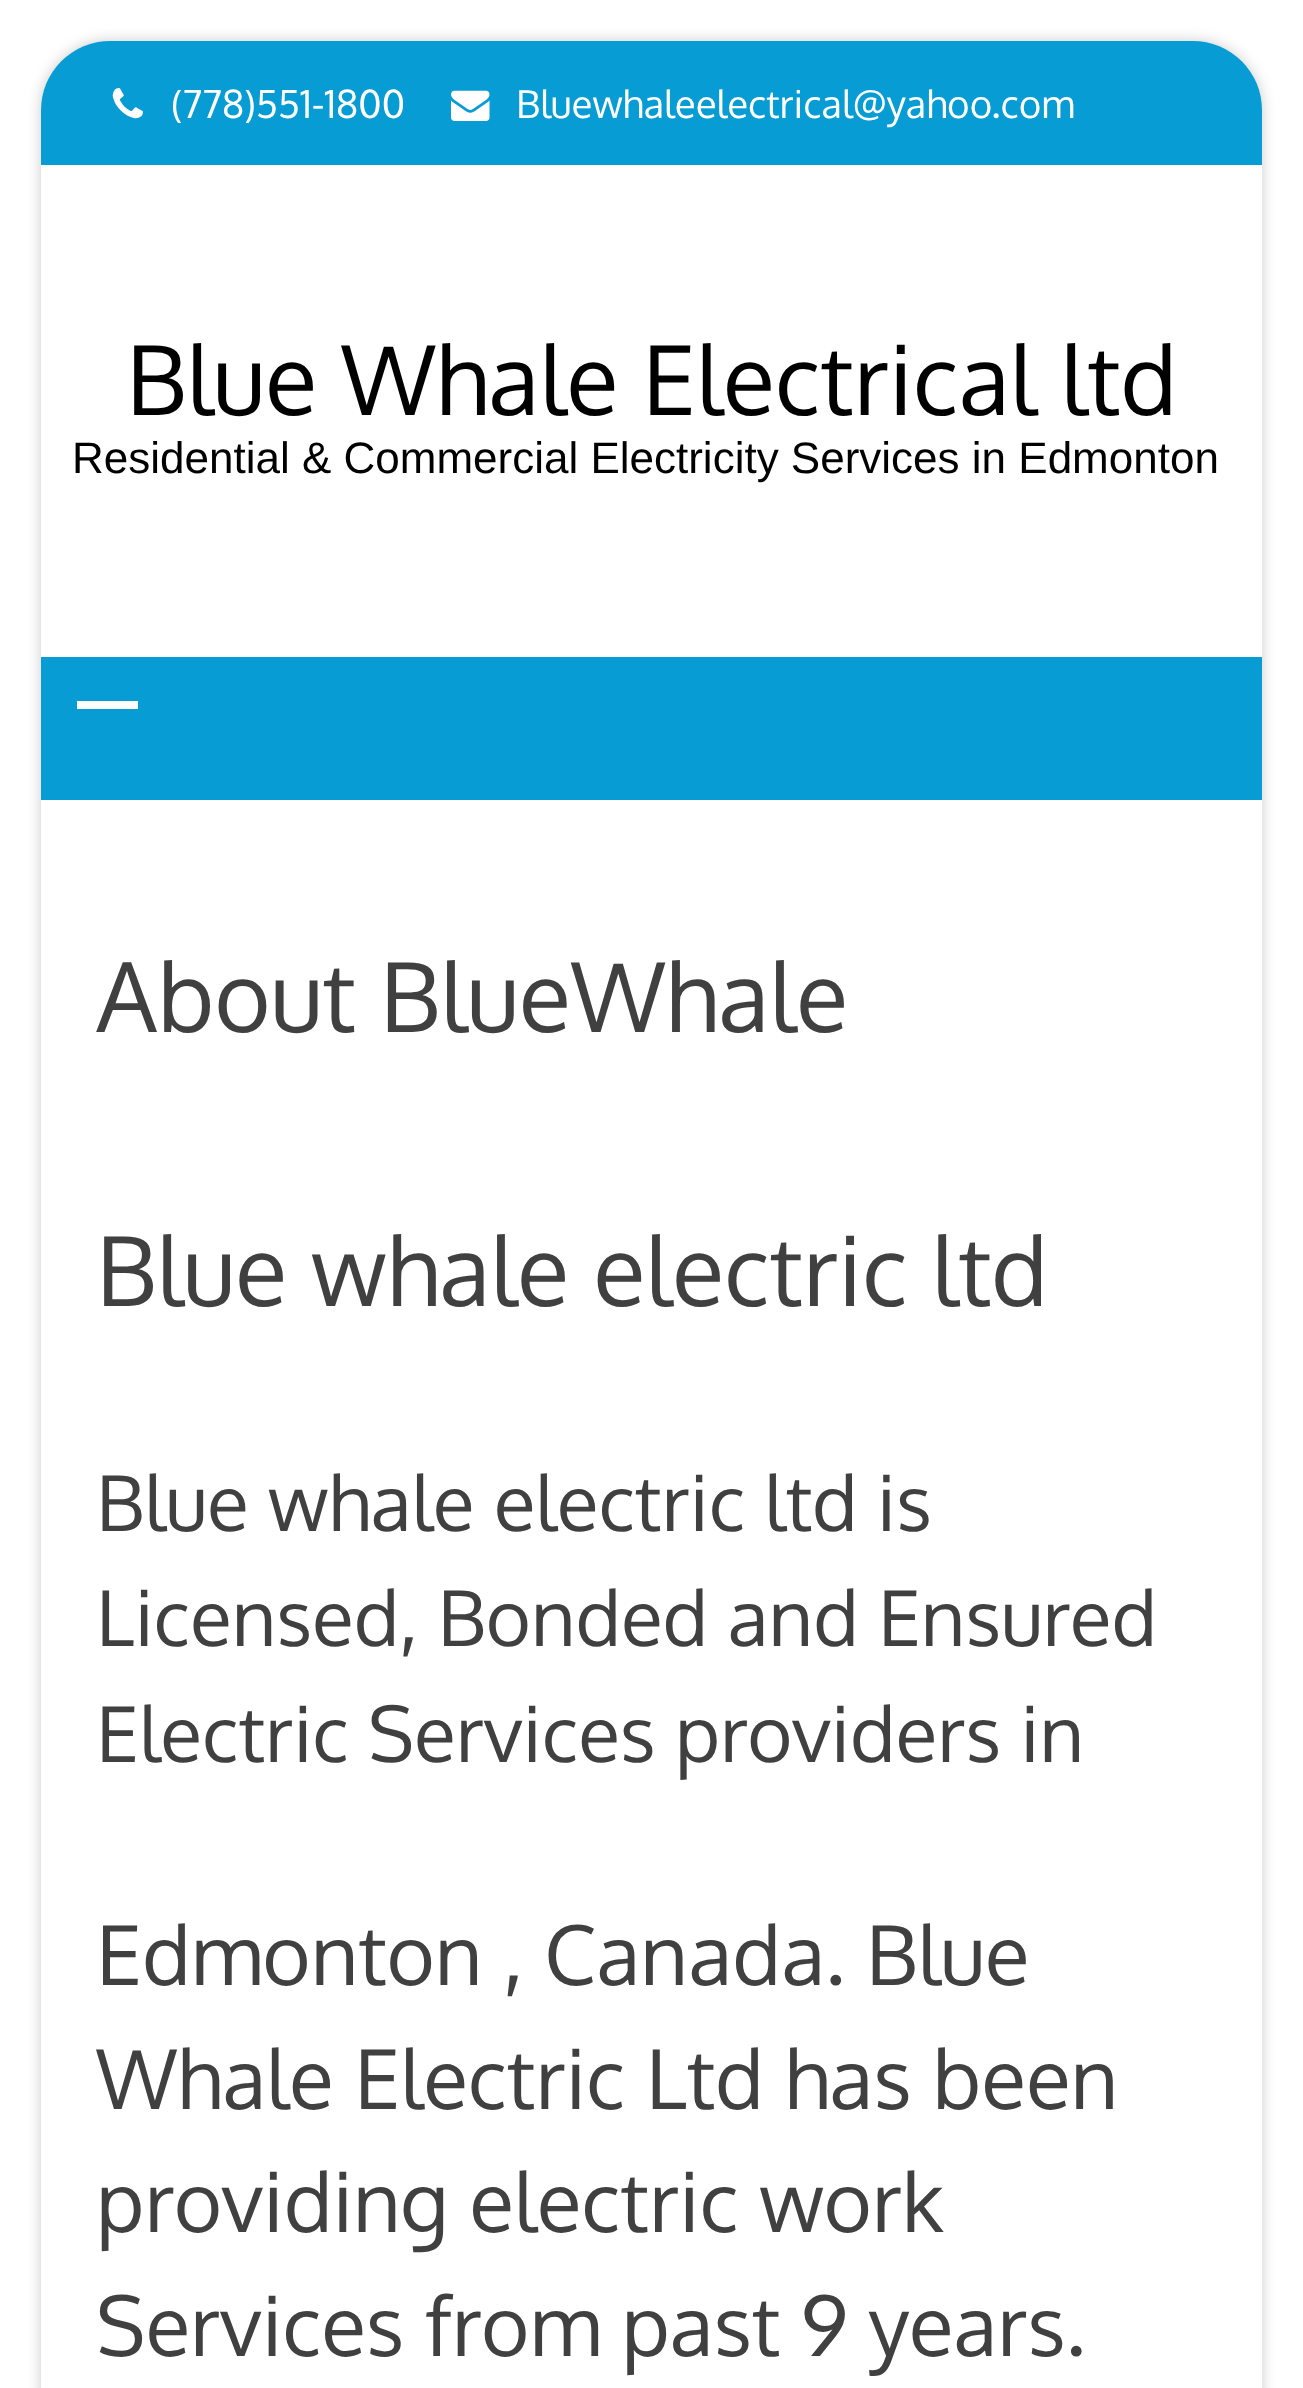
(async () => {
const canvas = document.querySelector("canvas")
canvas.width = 1303
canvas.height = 2388
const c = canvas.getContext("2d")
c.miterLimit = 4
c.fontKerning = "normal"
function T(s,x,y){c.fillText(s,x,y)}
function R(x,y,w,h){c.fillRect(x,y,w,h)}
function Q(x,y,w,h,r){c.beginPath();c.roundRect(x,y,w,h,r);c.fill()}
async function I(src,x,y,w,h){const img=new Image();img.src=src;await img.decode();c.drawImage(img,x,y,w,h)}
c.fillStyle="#fff"
R(0,0,1303,2388)
c.fillStyle="#00000033"
c.filter="blur(7px)"
c.beginPath()
c.roundRect(41,41,1221,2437,69)
c.fill()
c.filter="none"
c.fillStyle="#fff"
Q(41,41,1221,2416,69)
c.fillStyle="#079cd4"
c.beginPath()
c.roundRect(41,41,1221,124,[69,69,0,0])
c.fill()
await I("1.png",112,88,31,31)
c.font="38.5px Oxygen"
c.fillStyle="#fff"
T("(778)551-1800",171,118)
await I("2.png",451,90,39,31)
T("Bluewhaleelectrical@yahoo.com",516,118)
c.font="96.25px Oxygen"
c.fillStyle="#000"
T("Blue Whale Electrical ltd",126,415)
c.font="44px Liberation Sans"
T("Residential & Commercial Electricity Services in Edmonton",72,473)
c.fillStyle="#079cd4"
R(41,657,1221,143)
c.fillStyle="#fff"
R(77,701,61,8)
c.font="96.25px Oxygen"
c.fillStyle="#404040"
T("About BlueWhale",96,1032)
T("Blue whale electric ltd",96,1306)
c.font="77px Oxygen"
T("Blue whale electric ltd is",96,1531)
T("Licensed, Bonded and Ensured",96,1646)
T("Electric Services providers in",96,1762)
c.font="82.5px Oxygen"
T("Edmonton , Canada. Blue",96,1985)
T("Whale Electric Ltd has been",96,2109)
T("providing electric work",96,2232)
T("Services from past 9 years.",96,2356)
})()
